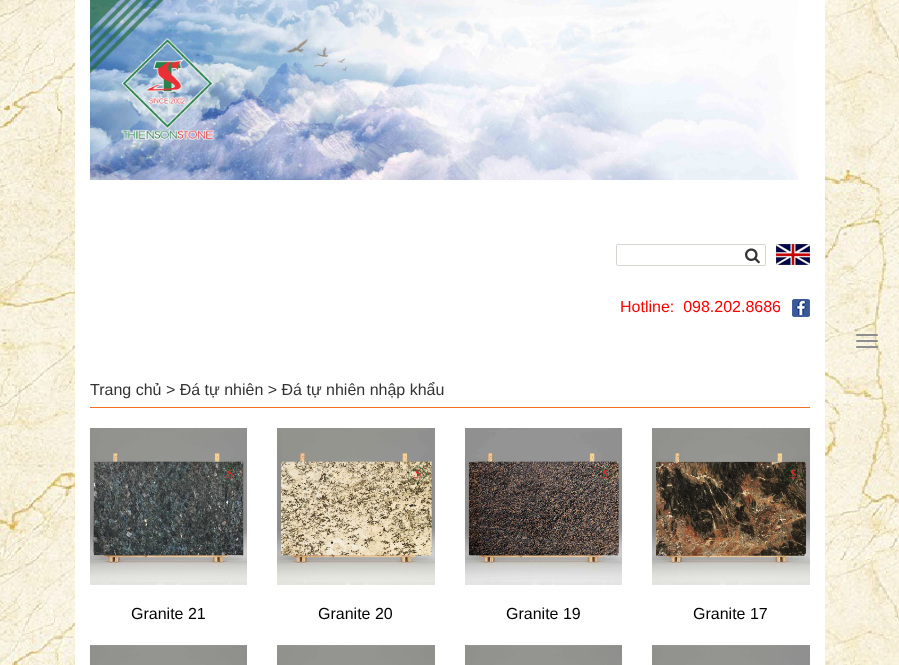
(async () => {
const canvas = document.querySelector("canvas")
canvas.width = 899
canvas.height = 665
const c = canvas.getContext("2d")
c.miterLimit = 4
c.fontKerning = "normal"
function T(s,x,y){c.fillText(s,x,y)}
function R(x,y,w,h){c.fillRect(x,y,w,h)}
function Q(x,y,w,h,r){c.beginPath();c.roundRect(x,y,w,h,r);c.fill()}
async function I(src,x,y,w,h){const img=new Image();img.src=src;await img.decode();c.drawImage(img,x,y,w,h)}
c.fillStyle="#fff"
R(0,0,899,665)
await I("1.png",0,0,899,665)
R(75,0,750,665)
await I("2.png",90,0,709,180)
c.beginPath()
c.roundRect(616.5,244.5,149,21,1.5)
c.strokeStyle="#d6d6d0"
c.stroke()
await I("3.png",745,248,15,16)
await I("4.png",776,244,34,21)
c.font="16px Liberation Sans"
c.fillStyle="#f00"
T("Hotline:  098.202.8686",620,312)
await I("5.png",792,299,18,18)
c.fillStyle="#8e8e8e"
Q(856,334,22,2,1)
Q(856,340,22,2,1)
Q(856,346,22,2,1)
c.fillStyle="#f37022"
R(90,407,720,1)
c.fillStyle="#333"
T("Trang chủ > Đá tự nhiên > Đá tự nhiên nhập khẩu",90,395)
await I("6.png",90,428,157,157)
c.fillStyle="#000"
T("Granite 21",131,619)
await I("7.png",277,428,158,157)
T("Granite 20",318,619)
await I("8.png",465,428,157,157)
T("Granite 19",506,619)
await I("9.png",652,428,158,157)
T("Granite 17",693,619)
await I("10.png",90,645,157,20)
await I("11.png",277,645,158,20)
await I("10.png",465,645,157,20)
await I("12.png",652,645,158,20)
})()
